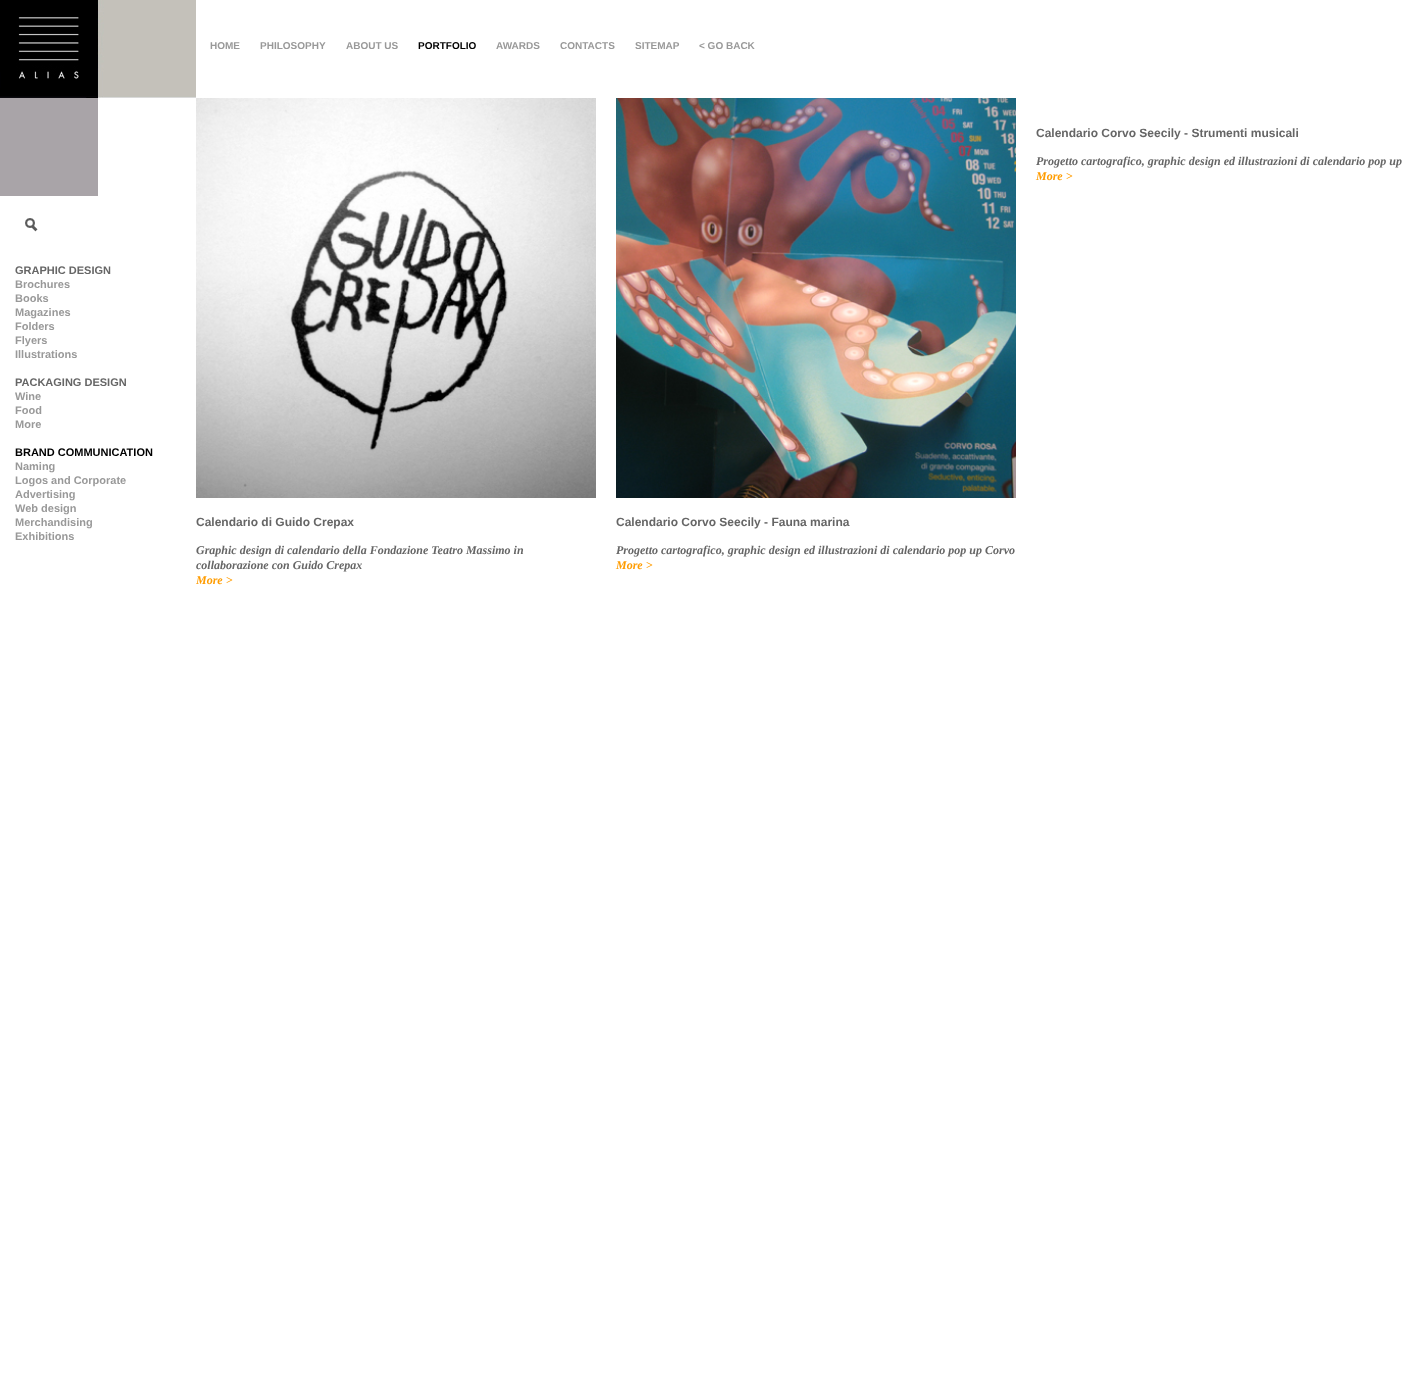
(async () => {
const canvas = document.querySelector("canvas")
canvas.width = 1406
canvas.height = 1375
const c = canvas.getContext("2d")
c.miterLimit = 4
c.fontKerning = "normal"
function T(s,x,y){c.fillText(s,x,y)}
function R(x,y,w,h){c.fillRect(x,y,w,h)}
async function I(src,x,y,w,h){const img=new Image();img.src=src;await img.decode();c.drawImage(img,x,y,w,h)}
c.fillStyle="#fff"
R(0,0,1406,1375)
c.font="bold 10px Liberation Sans"
c.fillStyle="#999"
T("HOME",210,49)
T("PHILOSOPHY",260,49)
T("ABOUT US",346,49)
c.fillStyle="#000"
T("PORTFOLIO",418,49)
c.fillStyle="#999"
T("AWARDS",496,49)
T("CONTACTS",560,49)
T("SITEMAP",635,49)
T("< GO BACK",699,49)
c.font="italic bold 12px Liberation Serif"
c.fillStyle="#ff9c00"
T("More >",196,584)
c.fillStyle="#fff"
R(195,583,1,1)
await I("1.png",0,0,196,98)
c.fillStyle="#a9a4a8"
R(0,98,98,98)
await I("2.png",25,218,13,14)
c.font="bold 11px Liberation Sans"
c.fillStyle="#666"
T("GRAPHIC DESIGN",15,274)
c.fillStyle="#999"
T("Brochures",15,288)
T("Books",15,302)
T("Magazines",15,316)
T("Folders",15,330)
T("Flyers",15,344)
T("Illustrations",15,358)
c.fillStyle="#666"
T("PACKAGING DESIGN",15,386)
c.fillStyle="#999"
T("Wine",15,400)
T("Food",15,414)
T("More",15,428)
c.fillStyle="#000"
T("BRAND COMMUNICATION",15,456)
c.fillStyle="#999"
T("Naming",15,470)
T("Logos and Corporate",15,484)
T("Advertising",15,498)
T("Web design",15,512)
T("Merchandising",15,526)
T("Exhibitions",15,540)
c.font="bold 12px Liberation Sans"
c.fillStyle="#666"
T("Calendario Corvo Seecily - Strumenti musicali",1036,137)
c.font="italic bold 12px Liberation Serif"
T("Progetto cartografico, graphic design ed illustrazioni di calendario pop up",1036,165)
c.fillStyle="#ff9c00"
T("More >",1036,180)
await I("3.png",196,98,400,400)
c.font="bold 12px Liberation Sans"
c.fillStyle="#666"
T("Calendario di Guido Crepax",196,526)
c.font="italic bold 12px Liberation Serif"
T("Graphic design di calendario della Fondazione Teatro Massimo in",196,554)
T("collaborazione con Guido Crepax",196,569)
await I("4.png",616,98,400,400)
c.font="bold 12px Liberation Sans"
T("Calendario Corvo Seecily - Fauna marina",616,526)
c.font="italic bold 12px Liberation Serif"
T("Progetto cartografico, graphic design ed illustrazioni di calendario pop up Corvo",616,554)
c.fillStyle="#ff9c00"
T("More >",616,569)
})()
